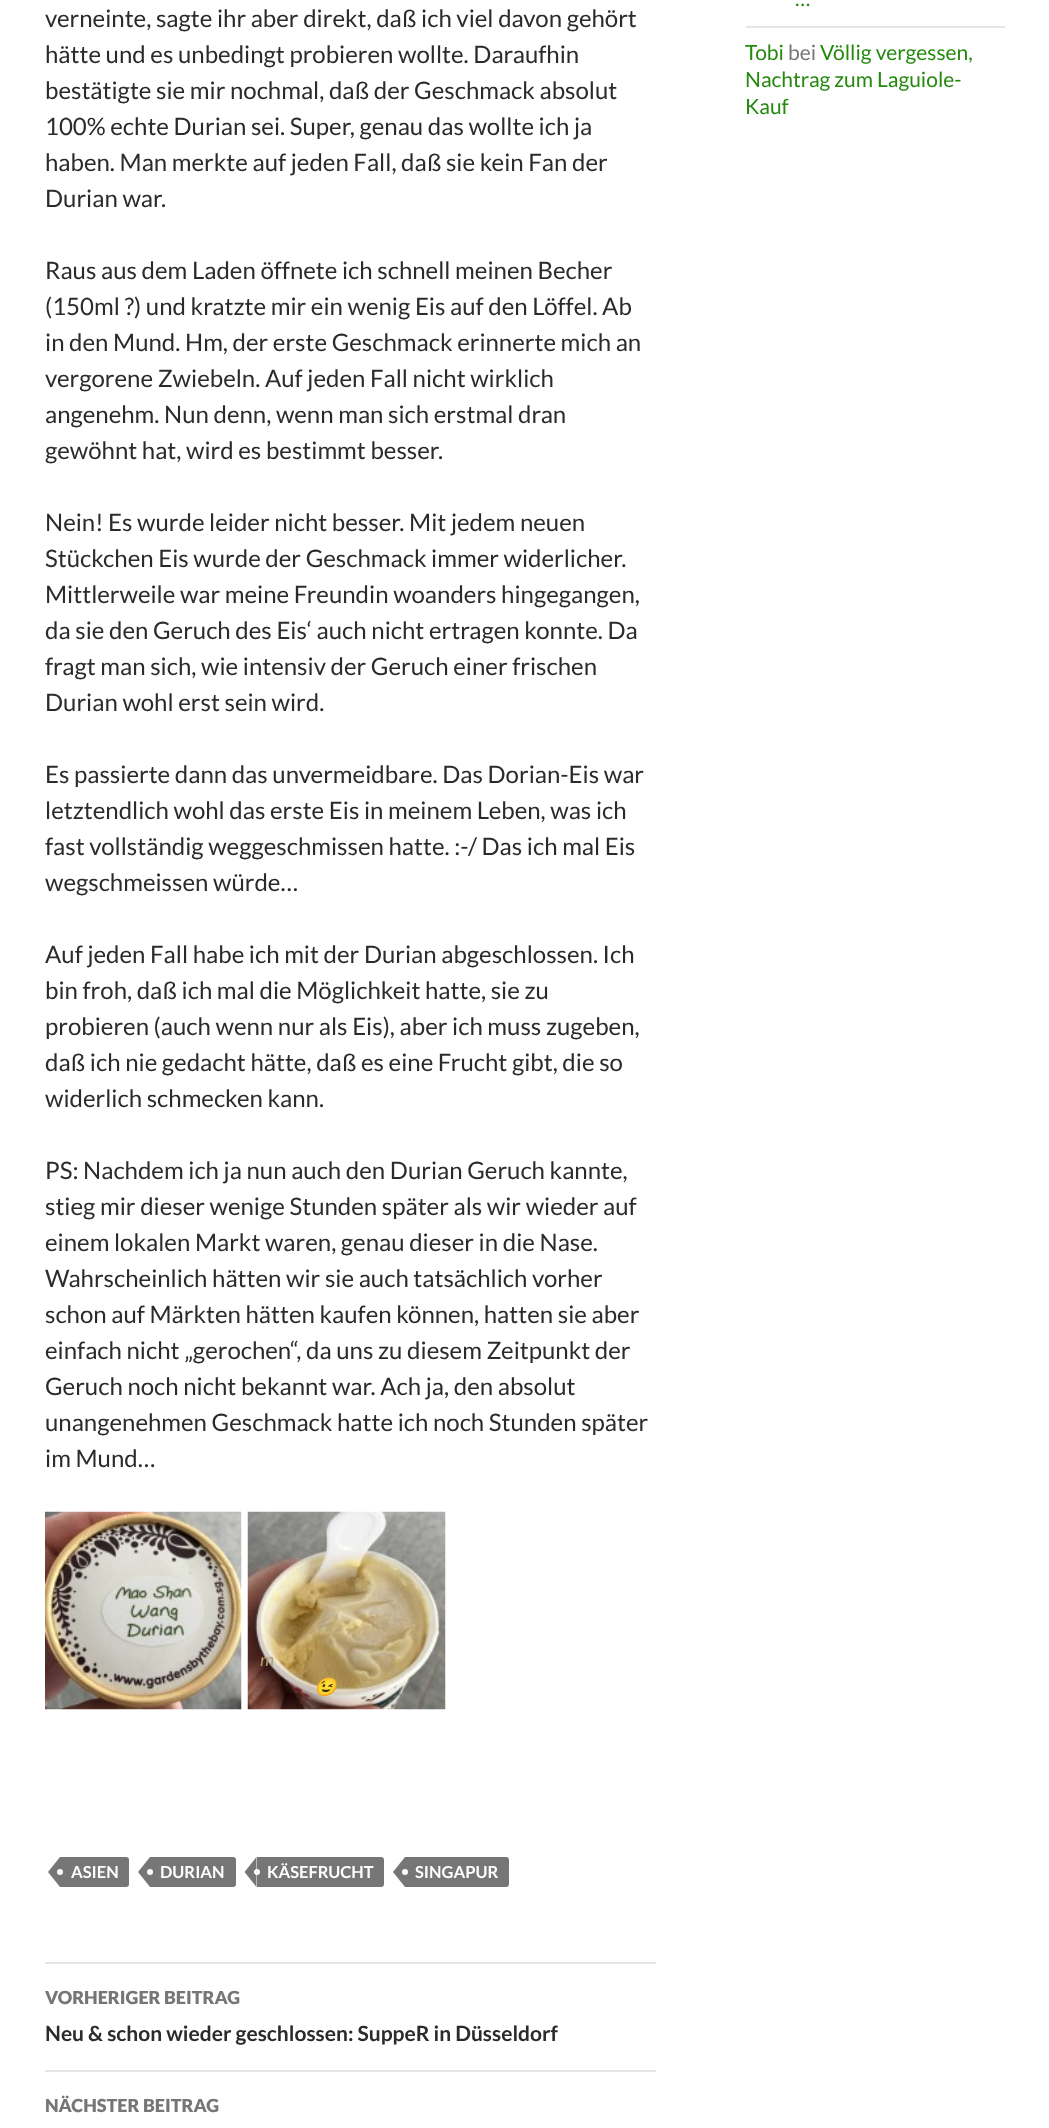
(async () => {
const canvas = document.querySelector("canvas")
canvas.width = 1049
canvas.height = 2128
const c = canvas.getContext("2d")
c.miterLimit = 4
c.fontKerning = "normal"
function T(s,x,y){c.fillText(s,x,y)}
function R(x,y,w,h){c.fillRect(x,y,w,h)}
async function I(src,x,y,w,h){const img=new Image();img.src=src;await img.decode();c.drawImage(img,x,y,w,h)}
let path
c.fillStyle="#fff"
R(0,0,1049,2128)
c.font="24px Lato"
c.fillStyle="#2b2b2b"
T("verneinte, sagte ihr aber direkt, daß ich viel davon gehört",45,27)
T("hätte und es unbedingt probieren wollte. Daraufhin",45,63)
T("bestätigte sie mir nochmal, daß der Geschmack absolut",45,99)
T("100% echte Durian sei. Super, genau das wollte ich ja",45,135)
T("haben. Man merkte auf jeden Fall, daß sie kein Fan der",45,171)
T("Durian war.",45,207)
T("Raus aus dem Laden öffnete ich schnell meinen Becher",45,279)
T("(150ml ?) und kratzte mir ein wenig Eis auf den Löffel. Ab",45,315)
T("in den Mund. Hm, der erste Geschmack erinnerte mich an",45,351)
T("vergorene Zwiebeln. Auf jeden Fall nicht wirklich",45,387)
T("angenehm. Nun denn, wenn man sich erstmal dran",45,423)
T("gewöhnt hat, wird es bestimmt besser.",45,459)
T("Nein! Es wurde leider nicht besser. Mit jedem neuen",45,531)
T("Stückchen Eis wurde der Geschmack immer widerlicher.",45,567)
T("Mittlerweile war meine Freundin woanders hingegangen,",45,603)
T("da sie den Geruch des Eis‘ auch nicht ertragen konnte. Da",45,639)
T("fragt man sich, wie intensiv der Geruch einer frischen",45,675)
T("Durian wohl erst sein wird.",45,711)
T("Es passierte dann das unvermeidbare. Das Dorian-Eis war",45,783)
T("letztendlich wohl das erste Eis in meinem Leben, was ich",45,819)
T("fast vollständig weggeschmissen hatte. :-/ Das ich mal Eis",45,855)
T("wegschmeissen würde…",45,891)
T("Auf jeden Fall habe ich mit der Durian abgeschlossen. Ich",45,963)
T("bin froh, daß ich mal die Möglichkeit hatte, sie zu",45,999)
T("probieren (auch wenn nur als Eis), aber ich muss zugeben,",45,1035)
T("daß ich nie gedacht hätte, daß es eine Frucht gibt, die so",45,1071)
T("widerlich schmecken kann.",45,1107)
T("PS: Nachdem ich ja nun auch den Durian Geruch kannte,",45,1179)
T("stieg mir dieser wenige Stunden später als wir wieder auf",45,1215)
T("einem lokalen Markt waren, genau dieser in die Nase.",45,1251)
T("Wahrscheinlich hätten wir sie auch tatsächlich vorher",45,1287)
T("schon auf Märkten hätten kaufen können, hatten sie aber",45,1323)
T("einfach nicht „gerochen“, da uns zu diesem Zeitpunkt der",45,1359)
T("Geruch noch nicht bekannt war. Ach ja, den absolut",45,1395)
T("unangenehmen Geschmack hatte ich noch Stunden später",45,1431)
T("im Mund…",45,1467)
await I("1.png",45,1511,197,199)
await I("2.png",247,1511,199,199)
c.font="italic 18px Lato"
c.fillStyle="#b69d6c"
T("m",260,1666)
c.font="italic 18px Noto Color Emoji"
c.fillStyle="#beab84"
T("😉",314,1693)
c.fillStyle="#767676"
c.beginPath()
c.roundRect(60,1857,69,30,[0,3,3,0])
c.fill()
path = new Path2D("M60 1857v30l-12-15z")
c.fill(path)
c.font="bold 16.5px Lato"
c.fillStyle="#fff"
T("ASIEN",71,1878)
c.beginPath()
c.arc(60,1872,3,0,7)
c.fill()
c.fillStyle="#767676"
c.beginPath()
c.roundRect(150,1857,86,30,[0,3,3,0])
c.fill()
path = new Path2D("M150 1857v30l-12-15z")
c.fill(path)
c.fillStyle="#fff"
T("DURIAN",160,1878)
c.beginPath()
c.arc(150,1872,3,0,7)
c.fill()
c.fillStyle="#767676"
c.beginPath()
c.roundRect(257,1857,127,30,[0,3,3,0])
c.fill()
path = new Path2D("M256.5 1857v30l-12-15z")
c.fill(path)
c.fillStyle="#fff"
T("KÄSEFRUCHT",267,1878)
c.beginPath()
c.arc(257,1872,3,0,7)
c.fill()
c.fillStyle="#767676"
c.beginPath()
c.roundRect(405,1857,104,30,[0,3,3,0])
c.fill()
path = new Path2D("M405 1857v30l-12-15z")
c.fill(path)
c.fillStyle="#fff"
T("SINGAPUR",415,1878)
c.beginPath()
c.arc(405,1872,3,0,7)
c.fill()
c.fillStyle="#e6e6e6"
R(45,1962,611,2)
R(45,2070,611,2)
c.font="900 18px Lato"
c.fillStyle="#767676"
T("VORHERIGER BEITRAG",45,2004)
c.font="bold 21px Lato"
c.fillStyle="#2b2b2b"
T("Neu & schon wieder geschlossen: SuppeR in Düsseldorf",45,2041)
c.font="900 18px Lato"
c.fillStyle="#767676"
T("NÄCHSTER BEITRAG",45,2112)
c.font="21px Lato"
c.fillStyle="#24890d"
T("…",795,6)
c.fillStyle="#e6e6e6"
R(746,26,259,2)
c.fillStyle="#24890d"
T("Tobi",745,60)
c.fillStyle="#767676"
T("bei",788,60)
c.fillStyle="#24890d"
T("Völlig vergessen,",820,60)
T("Nachtrag zum Laguiole-",745,87)
T("Kauf",745,114)
})()
